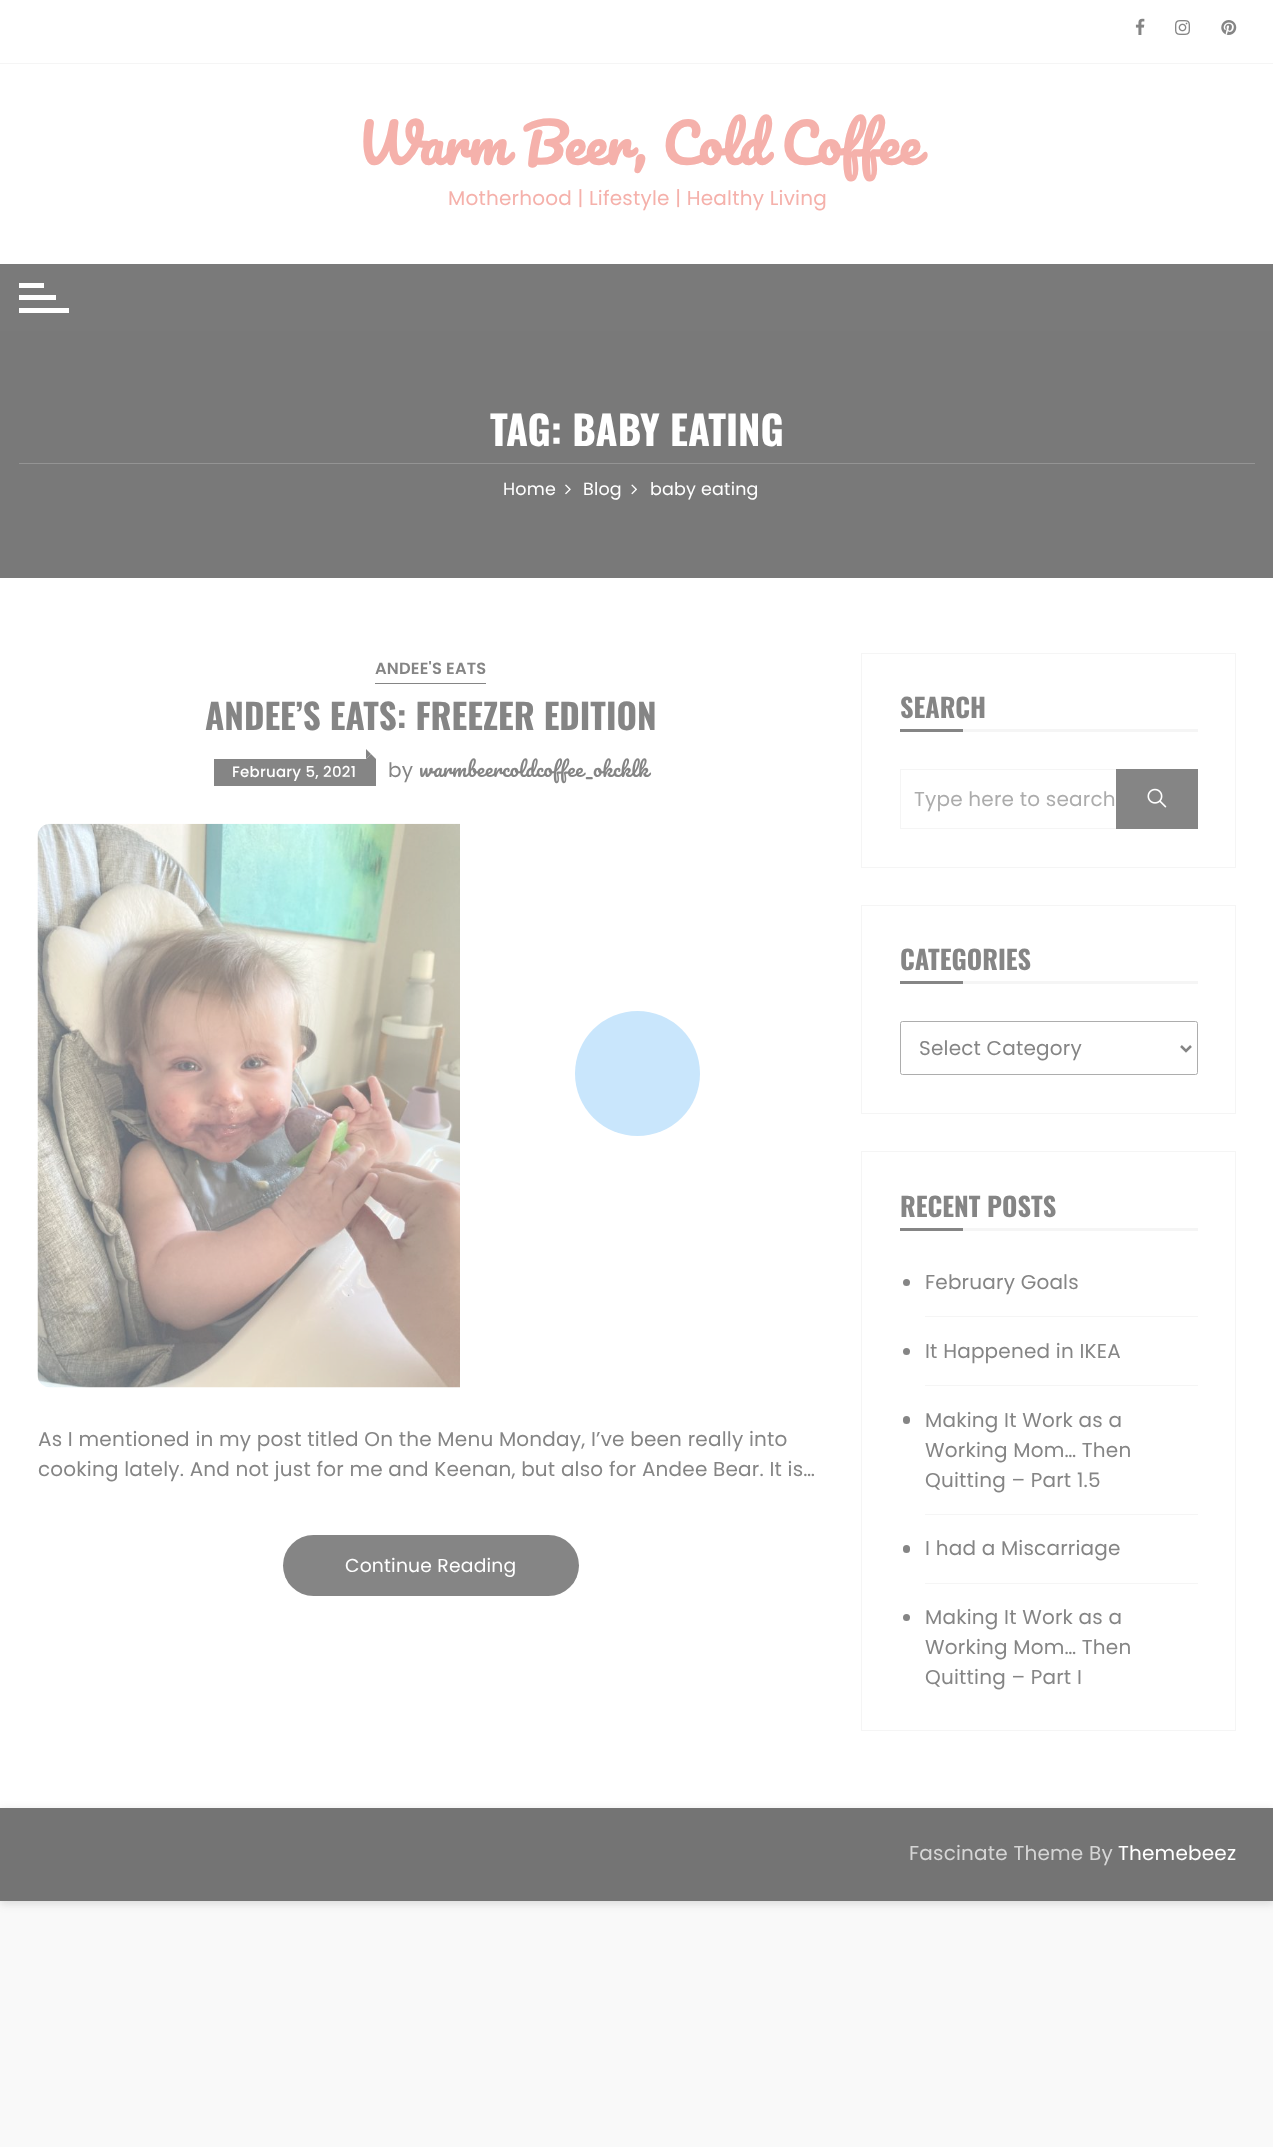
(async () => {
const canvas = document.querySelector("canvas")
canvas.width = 1273
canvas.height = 2147
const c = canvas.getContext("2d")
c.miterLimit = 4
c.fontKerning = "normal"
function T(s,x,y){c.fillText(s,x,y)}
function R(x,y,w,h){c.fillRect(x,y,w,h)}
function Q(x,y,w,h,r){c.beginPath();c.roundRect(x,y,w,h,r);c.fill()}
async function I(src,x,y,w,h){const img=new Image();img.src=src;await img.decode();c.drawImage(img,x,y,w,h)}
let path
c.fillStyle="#f9f9f9"
R(0,0,1273,2147)
c.fillStyle="#fff"
R(0,0,1273,1808)
c.fillStyle="#f5f5f5"
R(0,63,1273,1)
await I("1.png",1135,18,10,17)
await I("2.png",1175,20,15,15)
await I("3.png",1221,20,16,15)
c.letterSpacing="0.2px"
c.wordSpacing="1px"
c.font="bold 52.5px Pacifico"
c.fillStyle="#f5b1ab"
T("Warm Beer, Cold Coffee",357,165)
c.wordSpacing="0px"
c.font="20px Poppins"
T("Motherhood | Lifestyle | Healthy Living",448,205)
c.fillStyle="#7a7a7a"
R(0,264,1273,67)
c.fillStyle="#fff"
R(19,283,25,5)
R(19,295,37,5)
R(19,308,50,5)
c.fillStyle="#797979"
R(0,331,1273,247)
c.fillStyle="#949494"
R(19,463,1236,1)
c.letterSpacing="0px"
c.font="bold 40px Oswald"
c.fillStyle="#fff"
T("TAG: BABY EATING",490,446)
c.letterSpacing="0.2px"
c.font="17.5px Poppins"
T("Home",503,495)
await I("4.png",565,484,6,11)
T("Blog",583,495)
await I("5.png",631,484,6,11)
T("baby eating",650,495)
c.fillStyle="#858585"
R(375,683,111,1)
c.font="600 16.25px Poppins"
T("ANDEE'S EATS",375,674)
c.letterSpacing="0px"
c.font="bold 35px Oswald"
T("ANDEE’S EATS: FREEZER EDITION",205,730)
R(214,759,162,27)
path = new Path2D("M376 759h-10l5-5z")
c.fill(path)
path = new Path2D("M366 759v-10l5 5z")
c.fill(path)
c.letterSpacing="0.25px"
c.font="500 15px Poppins"
c.fillStyle="#fff"
T("February 5, 2021",232,777)
c.letterSpacing="0.2px"
c.font="20px Poppins"
c.fillStyle="#858585"
T("by",388,777)
c.font="20px Pacifico"
T("warmbeercoldcoffee_okcklk",419,777)
await I("6.png",37,823,423,565)
c.font="20px Poppins"
T("As I mentioned in my post titled On the Menu Monday, I’ve been really into",38,1446)
T("cooking lately. And not just for me and Keenan, but also for Andee Bear. It is…",38,1476)
Q(283,1535,296,61,30.5)
c.font="18.75px Poppins"
c.fillStyle="#fff"
T("Continue Reading",345,1572)
c.strokeStyle="#f5f5f5"
c.strokeRect(861.5,653.5,374,214)
c.fillStyle="#f5f5f5"
R(963,729,235,3)
c.letterSpacing="0px"
c.font="bold 26.25px Oswald"
c.fillStyle="#858585"
T("SEARCH",900,718)
R(900,729,63,3)
c.strokeRect(900.5,769.5,297,59)
c.letterSpacing="0.2px"
c.font="20px Poppins"
c.fillStyle="#acacac"
T("Type here to search",914,806)
c.fillStyle="#858585"
R(1116,769,82,60)
await I("7.png",1147,788,20,20)
c.strokeRect(861.5,905.5,374,208)
c.fillStyle="#f5f5f5"
R(963,981,235,3)
c.letterSpacing="0px"
c.font="bold 26.25px Oswald"
c.fillStyle="#858585"
T("CATEGORIES",900,970)
R(900,981,63,3)
c.beginPath()
c.roundRect(900.5,1021.5,297,53,2)
c.strokeStyle="#adadad"
c.stroke()
path = new Path2D("M1181 1046l5 5l5-5")
c.strokeStyle="#858585"
c.lineWidth=2.5
c.stroke(path)
c.letterSpacing="0.2px"
c.font="20px Poppins"
T("Select Category",919,1055)
c.strokeStyle="#f5f5f5"
c.lineWidth=1
c.strokeRect(861.5,1151.5,374,579)
c.fillStyle="#f5f5f5"
R(963,1228,235,3)
c.letterSpacing="0px"
c.font="bold 26.25px Oswald"
c.fillStyle="#858585"
T("RECENT POSTS",900,1217)
R(900,1228,63,3)
c.fillStyle="#f5f5f5"
R(925,1316,273,1)
c.fillStyle="#858585"
c.beginPath()
c.arc(906.5,1282.5,3.5,0,7)
c.fill()
c.letterSpacing="0.2px"
c.font="20px Poppins"
T("February Goals",925,1289)
c.fillStyle="#f5f5f5"
R(925,1385,273,1)
c.fillStyle="#858585"
c.beginPath()
c.arc(906.5,1351.5,3.5,0,7)
c.fill()
T("It Happened in IKEA",925,1358)
c.fillStyle="#f5f5f5"
R(925,1514,273,1)
c.fillStyle="#858585"
Q(903,1416,7,8,3.5)
T("Making It Work as a",925,1427)
T("Working Mom… Then",925,1457)
T("Quitting – Part 1.5",925,1487)
c.fillStyle="#f5f5f5"
R(925,1583,273,1)
c.fillStyle="#858585"
Q(903,1545,7,8,3.5)
T("I had a Miscarriage",925,1555)
c.beginPath()
c.arc(906.5,1617.5,3.5,0,7)
c.fill()
T("Making It Work as a",925,1624)
T("Working Mom… Then",925,1654)
T("Quitting – Part I",925,1684)
c.fillStyle="#c9e6fc"
c.beginPath()
c.arc(637.5,1073.5,62.5,0,7)
c.fill()
c.fillStyle="#66666633"
c.filter="blur(4px)"
c.beginPath()
c.rect(0,1810,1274,94)
c.fill()
c.filter="none"
c.fillStyle="#747474"
R(0,1808,1273,93)
c.fillStyle="#d5d5d5"
T("Fascinate Theme By",909,1860)
c.fillStyle="#fff"
T("Themebeez",1118,1860)
})()
